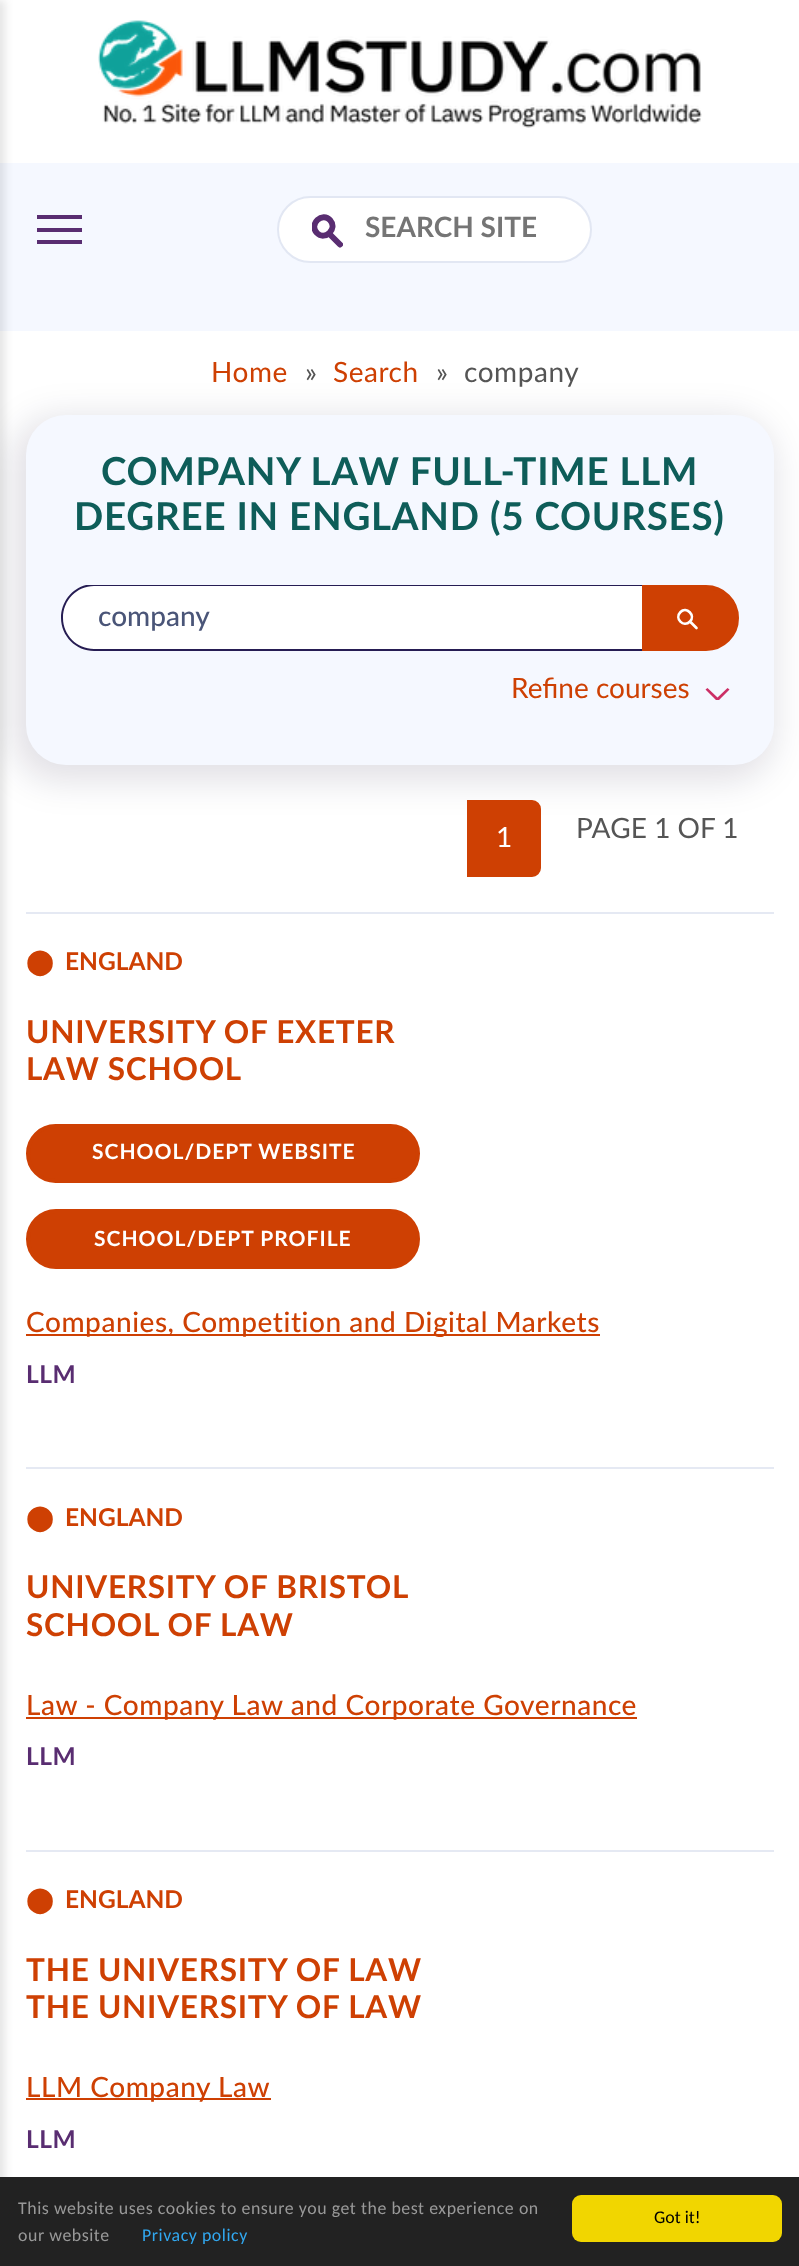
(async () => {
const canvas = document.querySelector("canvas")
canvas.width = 799
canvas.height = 2266
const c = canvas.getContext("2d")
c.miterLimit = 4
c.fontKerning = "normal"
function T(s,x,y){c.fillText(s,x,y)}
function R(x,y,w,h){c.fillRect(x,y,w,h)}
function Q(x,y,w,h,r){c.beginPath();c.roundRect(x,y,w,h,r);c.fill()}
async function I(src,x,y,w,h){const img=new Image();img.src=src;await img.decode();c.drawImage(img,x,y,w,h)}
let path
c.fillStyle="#fff"
R(0,0,799,2266)
await I("1.png",98,20,604,108)
c.fillStyle="#f5f8ff"
R(0,163,799,168)
c.fillStyle="#0000001a"
c.filter="blur(4.5px)"
c.beginPath()
c.rect(-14,0,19,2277)
c.fill()
c.filter="none"
c.fillStyle="#592d71"
R(37,215,45,4)
R(37,228,45,4)
R(37,240,45,4)
c.fillStyle="#fff"
c.beginPath()
c.roundRect(278,197,313,65,32.5)
c.fill()
c.strokeStyle="#e2e7f3"
c.lineWidth=2
c.stroke()
c.save()
c.beginPath()
c.rect(312,214,31,35)
c.clip()
path = new Path2D("M336 240.5l-6.5-6.5l10.5 10.5zm-19-7.5c-8.5-9 5.5-21.5 13-13c8 9-5 21-13 13z")
c.strokeStyle="#592d71"
c.lineWidth=6
c.lineCap="round"
c.lineJoin="round"
c.stroke(path)
c.restore()
c.font="bold 28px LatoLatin"
c.fillStyle="#757575"
T("SEARCH SITE",365,237)
c.letterSpacing="0.55px"
c.font="28px LatoLatin"
c.fillStyle="#ce4003"
T("Home",211,382)
c.fillStyle="#555"
T("»",305,382)
c.fillStyle="#ce4003"
T("Search",333,382)
c.fillStyle="#555"
T("»",436,382)
T("company",464,382)
c.fillStyle="#0801281f"
c.filter="blur(17.5px)"
c.beginPath()
c.roundRect(12,417,762,364,47)
c.fill()
c.filter="none"
c.fillStyle="#f5f8ff"
Q(26,415,748,350,40)
c.letterSpacing="0.75px"
c.font="bold 38.5px LatoLatin"
c.fillStyle="#0e5d59"
T("COMPANY LAW FULL-TIME LLM",101,485)
T("DEGREE IN ENGLAND (5 COURSES)",74,530)
c.fillStyle="#fff"
c.beginPath()
c.roundRect(61,585,581,66,[33,0,0,33])
c.fill()
c.save()
c.beginPath()
c.rect(61,585,581,66)
c.clip()
c.fillStyle="#261d53"
path = new Path2D("M94 584h548v67h-548c-18 0-33-15-33-33c0-19 15-34 33-34zm0 2h548v63h-548c-17 0-31-14-31-31c0-18 14-32 31-32z")
c.fill(path,"evenodd")
c.restore()
c.letterSpacing="0px"
c.font="500 28px LatoLatin"
c.fillStyle="#4a5578"
T("company",98,626)
c.fillStyle="#ce4003"
c.beginPath()
c.roundRect(644,587,93,62,[0,31,31,0])
c.fill()
c.strokeStyle="#ce4003"
c.lineWidth=4
c.stroke()
path = new Path2D("M691 622.5l5.5 5.5")
c.strokeStyle="#fff"
c.lineWidth=2.6
c.lineCap="round"
c.stroke(path)
path = new Path2D("M680.5 612c6-6 15.5 3.5 9.5 9.5c-6.5 6.5-16-3-9.5-9.5z")
c.lineCap="butt"
c.stroke(path)
c.font="28px LatoLatin"
T("Refine courses",511,698)
c.save()
c.beginPath()
c.rect(705,688,25,12)
c.clip()
c.fillStyle="#cc2f66"
path = new Path2D("M707.5 688l10 9.5l10-9.5l2 1.5l-12 12l-12-12z")
c.fill(path)
c.restore()
c.beginPath()
c.roundRect(468,801,72,75,[0,8,8,0])
c.fill()
c.strokeStyle="#ce4003"
c.lineWidth=2
c.stroke()
c.letterSpacing="0.55px"
c.fillStyle="#fff"
T("1",496,847)
c.letterSpacing="0px"
c.fillStyle="#555"
T("PAGE 1 OF 1",576,838)
c.fillStyle="#e5e9f3"
R(26,912,748,2)
c.font="bold 24.5px DejaVu Sans"
c.fillStyle="#ce4003"
T("⬤",26,970)
c.font="bold 24.5px LatoLatin"
T("ENGLAND",65,970)
c.letterSpacing="0.75px"
c.font="bold 31.5px LatoLatin"
T("UNIVERSITY OF EXETER",26,1043)
T("LAW SCHOOL",26,1080)
c.beginPath()
c.roundRect(28,1126,390,55,27.5)
c.fill()
c.lineWidth=4
c.stroke()
c.letterSpacing="1px"
c.font="bold 21px LatoLatin"
c.fillStyle="#fff"
T("SCHOOL/DEPT WEBSITE",92,1159)
c.fillStyle="#ce4003"
c.beginPath()
c.roundRect(28,1211,390,56,28)
c.fill()
c.stroke()
c.fillStyle="#fff"
T("SCHOOL/DEPT PROFILE",94,1246)
c.fillStyle="#ce4003"
R(26,1334,574,2)
c.letterSpacing="0.55px"
c.font="500 28px LatoLatin"
T("Companies, Competition and Digital Markets",26,1332)
c.letterSpacing="0.5px"
c.font="bold 24.5px LatoLatin"
c.fillStyle="#592d71"
T("LLM",26,1383)
c.fillStyle="#e5e9f3"
R(26,1467,748,2)
c.letterSpacing="0px"
c.font="bold 24.5px DejaVu Sans"
c.fillStyle="#ce4003"
T("⬤",26,1526)
c.font="bold 24.5px LatoLatin"
T("ENGLAND",65,1526)
c.letterSpacing="0.75px"
c.font="bold 31.5px LatoLatin"
T("UNIVERSITY OF BRISTOL",26,1598)
T("SCHOOL OF LAW",26,1636)
R(26,1717,611,2)
c.letterSpacing="0.55px"
c.font="500 28px LatoLatin"
T("Law - Company Law and Corporate Governance",26,1715)
c.letterSpacing="0.5px"
c.font="bold 24.5px LatoLatin"
c.fillStyle="#592d71"
T("LLM",26,1765)
c.fillStyle="#e5e9f3"
R(26,1850,748,2)
c.letterSpacing="0px"
c.font="bold 24.5px DejaVu Sans"
c.fillStyle="#ce4003"
T("⬤",26,1908)
c.font="bold 24.5px LatoLatin"
T("ENGLAND",65,1908)
c.letterSpacing="0.75px"
c.font="bold 31.5px LatoLatin"
T("THE UNIVERSITY OF LAW",26,1981)
T("THE UNIVERSITY OF LAW",26,2018)
R(26,2098,245,2)
c.letterSpacing="0.55px"
c.font="500 28px LatoLatin"
T("LLM Company Law",26,2097)
c.letterSpacing="0.5px"
c.font="bold 24.5px LatoLatin"
c.fillStyle="#592d71"
T("LLM",26,2148)
c.fillStyle="#222"
R(0,2177,799,89)
c.letterSpacing="0.55px"
c.font="17.85px Carlito"
c.fillStyle="#999"
T("This website uses cookies to ensure you get the best experience on",18,2214)
T("our website",18,2241)
c.fillStyle="#31a8f0"
T("Privacy policy",142,2241)
c.fillStyle="#f1d600"
Q(572,2195,210,47,9)
c.letterSpacing="0px"
c.fillStyle="#000"
T("Got it!",654,2223)
})()
